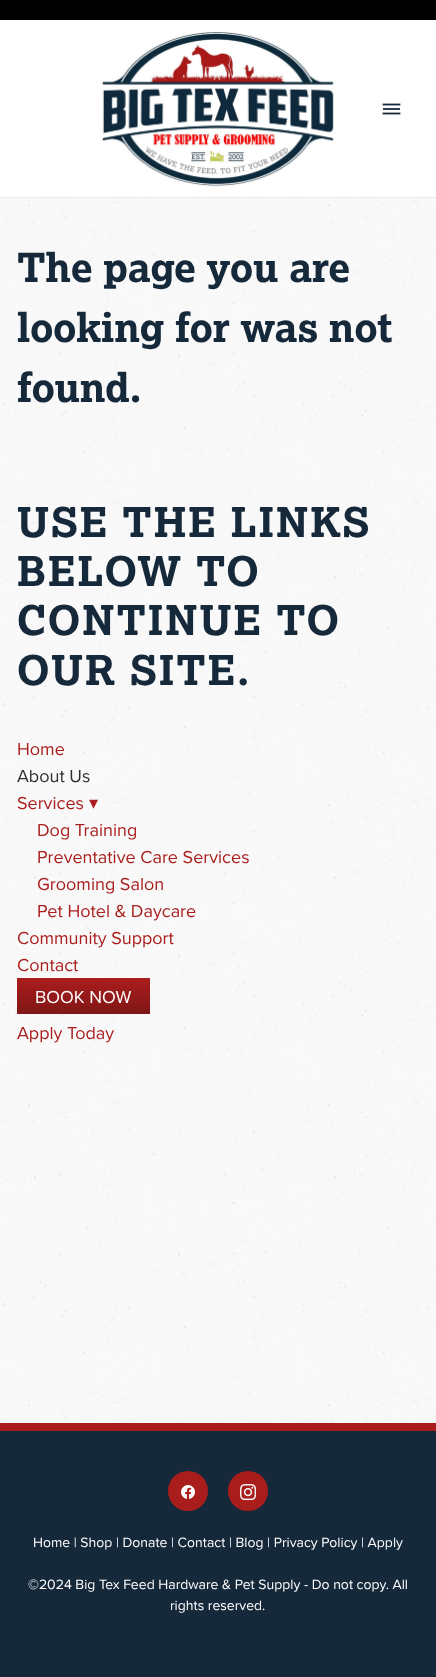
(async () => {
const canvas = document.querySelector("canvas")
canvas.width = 436
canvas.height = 1677
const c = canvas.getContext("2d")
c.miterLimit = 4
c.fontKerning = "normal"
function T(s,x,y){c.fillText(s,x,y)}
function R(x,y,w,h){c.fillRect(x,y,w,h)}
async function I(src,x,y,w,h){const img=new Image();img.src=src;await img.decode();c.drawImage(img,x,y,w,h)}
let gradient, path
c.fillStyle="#fff"
R(0,0,436,1677)
await I("1.png",0,198,436,1225)
c.fillStyle="#ebebeb"
R(0,197,436,1)
c.fillStyle="#000"
R(0,0,436,20)
await I("2.png",101,32,234,155)
path = new Path2D("M383.5 104.5h16")
c.strokeStyle="#15293b"
c.lineWidth=1.8
c.lineCap="square"
c.stroke(path)
c.fillStyle="#2c3e4f"
R(383,108,17,2)
path = new Path2D("M383.5 113.5h16")
c.stroke(path)
c.font="bold 40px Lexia"
c.fillStyle="#15293b"
T("The page you are",17,282)
T("looking for was not",17,342)
T("found.",17,402)
c.letterSpacing="2px"
c.font="bold 41px Lexia"
T("USE THE LINKS",17,537)
T("BELOW TO",17,586)
T("CONTINUE TO",17,635)
T("OUR SITE.",17,685)
c.letterSpacing="0px"
c.font="18px Proxima Nova"
c.fillStyle="#aa1d1d"
T("Home",17,755)
c.fillStyle="#2e2e2e"
T("About Us",17,782)
c.fillStyle="#aa1d1d"
T("Services",17,809)
c.font="18px DejaVu Sans"
T("▾",89,809)
c.font="18px Proxima Nova"
T("Dog Training",37,836)
T("Preventative Care Services",37,863)
T("Grooming Salon",37,890)
T("Pet Hotel & Daycare",37,917)
T("Community Support",17,944)
T("Contact",17,971)
gradient = c.createLinearGradient(84,978,84,1014)
gradient.addColorStop(0,"#aa1d1d")
gradient.addColorStop(1,"#801616")
c.fillStyle = gradient
R(17,978,133,36)
c.fillStyle="#fff"
T("BOOK NOW",35,1003)
c.fillStyle="#aa1d1d"
T("Apply Today",17,1039)
c.fillStyle="#15293b"
R(0,1431,436,246)
c.fillStyle="#aa1d1d"
R(0,1423,436,8)
c.beginPath()
c.arc(188,1491,20,0,7)
c.fill()
await I("3.png",181,1485,14,14)
c.beginPath()
c.arc(248,1491,20,0,7)
c.fill()
await I("4.png",240,1484,17,17)
c.font="14px Proxima Nova"
c.fillStyle="#fff"
T("Home | Shop | Donate | Contact | Blog | Privacy Policy | Apply",33,1547)
T("©2024 Big Tex Feed Hardware & Pet Supply - Do not copy. All",28,1589)
T("rights reserved.",170,1610)
})()
